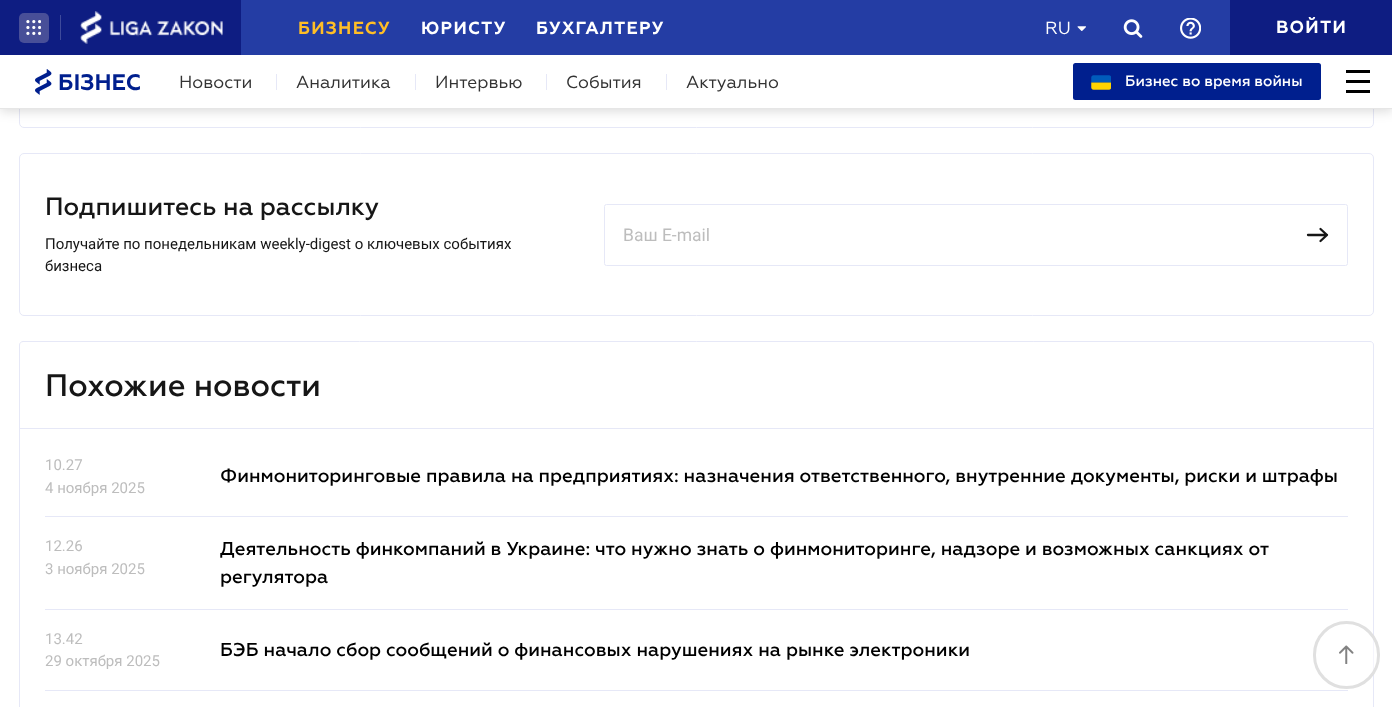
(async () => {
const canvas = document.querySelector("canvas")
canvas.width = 1392
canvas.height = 707
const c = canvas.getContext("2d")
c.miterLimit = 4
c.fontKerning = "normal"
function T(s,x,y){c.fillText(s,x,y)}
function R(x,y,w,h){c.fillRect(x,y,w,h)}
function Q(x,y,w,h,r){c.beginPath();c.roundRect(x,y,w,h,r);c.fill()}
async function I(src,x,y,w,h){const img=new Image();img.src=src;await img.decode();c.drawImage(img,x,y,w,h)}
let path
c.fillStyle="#fff"
R(0,0,1392,707)
c.beginPath()
c.roundRect(19.5,-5.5,1354,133,4.5)
c.strokeStyle="#e6e8f7"
c.stroke()
c.fillStyle="#00000026"
c.filter="blur(6px)"
c.beginPath()
c.rect(0,58,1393,53)
c.fill()
c.filter="none"
c.fillStyle="#243da4"
R(241,0,989,55)
c.fillStyle="#0e1d82"
R(0,0,241,55)
c.fillStyle="#484f98"
Q(19,13,30,30,5)
await I("1.png",26,20,15,15)
c.fillStyle="#3e4a9b"
R(60,15,1,25)
await I("2.png",80,11,143,33)
c.letterSpacing="1.25px"
c.font="bold 17.5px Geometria"
c.fillStyle="#ffbe26"
T("БИЗНЕСУ",298,34)
c.fillStyle="#fff"
T("ЮРИСТУ",421,34)
T("БУХГАЛТЕРУ",536,34)
c.letterSpacing="0px"
c.font="17.5px Geometria"
T("RU",1045,34)
await I("3.png",1077,26,9,5)
await I("4.png",1123,19,20,19)
await I("5.png",1180,18,21,21)
c.fillStyle="#0e1d82"
R(1230,0,162,55)
c.letterSpacing="1.25px"
c.font="bold 17.5px Geometria"
c.fillStyle="#fff"
T("ВОЙТИ",1276,33)
R(0,55,1392,53)
c.fillStyle="#e6e6e6"
R(0,108,1392,1)
await I("6.png",35,69,17,26)
c.letterSpacing="0px"
c.font="bold 22.5px Geometria"
c.fillStyle="#001f8e"
T("БІЗНЕС",58,90)
c.font="17.5px Geometria"
c.fillStyle="#333"
T("Новости",179,88)
c.fillStyle="#e6e8f7"
R(276,74,1,16)
c.fillStyle="#333"
T("Аналитика",296,88)
c.fillStyle="#e6e8f7"
R(415,74,1,16)
c.fillStyle="#333"
T("Интервью",435,88)
c.fillStyle="#e6e8f7"
R(546,74,1,16)
c.fillStyle="#333"
T("События",566,88)
c.fillStyle="#e6e8f7"
R(666,74,1,16)
c.fillStyle="#333"
T("Актуально",686,88)
c.fillStyle="#001f8e"
Q(1073,63,248,37,2.5)
await I("7.png",1091,75,20,15)
c.font="500 15px Geometria"
c.fillStyle="#fff"
T("Бизнес во время войны",1125,86)
c.fillStyle="#000"
R(1346,70,24,3)
R(1346,80,24,3)
R(1346,90,24,3)
c.beginPath()
c.roundRect(19.5,153.5,1354,162,4.5)
c.stroke()
c.font="500 25px Geometria"
c.fillStyle="#161616"
T("Подпишитесь на рассылку",45,215)
c.font="15px Roboto"
T("Получайте по понедельникам weekly-digest о ключевых событиях",45,249)
T("бизнеса",45,271)
c.beginPath()
c.roundRect(604.5,204.5,743,61,2)
c.stroke()
c.font="17.5px Roboto"
c.fillStyle="#bdbdbd"
T("Ваш E-mail",623,241)
path = new Path2D("M1327 235h-19m19 0l-6.5-6m6.5 6l-6.5 6")
c.strokeStyle="#161616"
c.lineWidth=2.3
c.lineCap="round"
c.lineJoin="round"
c.stroke(path)
path = new Path2D("M23 341.5h1347c2 0 3.5 1.5 3.5 3.5v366.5h-1354v-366.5c0-2 1.5-3.5 3.5-3.5z")
c.strokeStyle="#e6e8f7"
c.lineWidth=1
c.lineJoin="miter"
c.stroke(path)
c.fillStyle="#e6e8f7"
R(20,428,1353,1)
c.font="500 31.25px Geometria"
c.fillStyle="#161616"
T("Похожие новости",45,396)
c.fillStyle="#e6e8f7"
R(45,516,1303,1)
c.font="15px Roboto"
c.fillStyle="#bdbdbd"
T("10.27",45,470)
T("4 ноября 2025",45,493)
c.font="500 18.75px Geometria"
c.fillStyle="#000"
T("Финмониторинговые правила на предприятиях: назначения ответственного, внутренние документы, риски и штрафы",220,482)
c.fillStyle="#e6e8f7"
R(45,609,1303,1)
c.font="15px Roboto"
c.fillStyle="#bdbdbd"
T("12.26",45,551)
T("3 ноября 2025",45,574)
c.font="500 18.75px Geometria"
c.fillStyle="#000"
T("Деятельность финкомпаний в Украине: что нужно знать о финмониторинге, надзоре и возможных санкциях от",220,555)
T("регулятора",220,583)
c.fillStyle="#e6e8f7"
R(45,690,1303,1)
c.font="15px Roboto"
c.fillStyle="#bdbdbd"
T("13.42",45,644)
T("29 октября 2025",45,666)
c.font="500 18.75px Geometria"
c.fillStyle="#000"
T("БЭБ начало сбор сообщений о финансовых нарушениях на рынке электроники",220,656)
c.fillStyle="#ffffff94"
c.beginPath()
c.roundRect(1314.5,622.5,64,65,32)
c.fill()
c.strokeStyle="#e0e0e0"
c.lineWidth=3
c.stroke()
await I("8.png",1339,645,15,19)
})()
